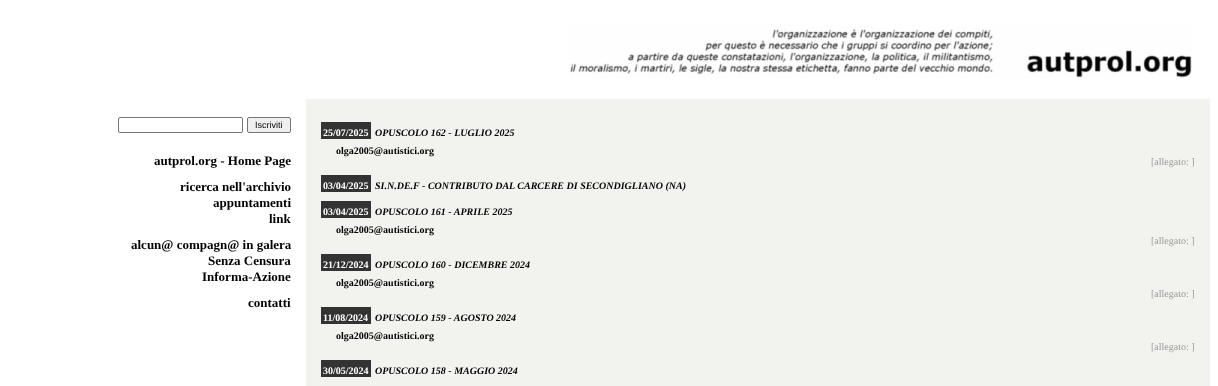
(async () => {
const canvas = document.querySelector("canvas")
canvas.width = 1218
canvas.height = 386
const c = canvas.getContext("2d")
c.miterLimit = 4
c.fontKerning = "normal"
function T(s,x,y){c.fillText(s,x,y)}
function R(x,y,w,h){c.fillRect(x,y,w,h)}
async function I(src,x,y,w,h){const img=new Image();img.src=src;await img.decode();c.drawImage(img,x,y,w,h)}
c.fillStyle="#fff"
R(0,0,1218,386)
await I("1.png",570,26,622,52)
c.beginPath()
c.roundRect(118.5,117.5,124,15,1.5)
c.strokeStyle="#767676"
c.stroke()
c.fillStyle="#efefef"
c.beginPath()
c.roundRect(247.5,117.5,43,15,1.5)
c.fill()
c.stroke()
c.font="9px Liberation Sans"
c.fillStyle="#000"
T("Iscriviti",255,128)
c.font="bold 13px Liberation Serif"
T("autprol.org - Home Page",154,165)
T("ricerca nell'archivio",180,191)
T("appuntamenti",213,207)
T("link",269,223)
T("alcun@ compagn@ in galera",131,249)
T("Senza Censura",208,265)
T("Informa-Azione",202,281)
T("contatti",248,307)
c.fillStyle="#f2f2ee"
R(306,99,904,287)
c.fillStyle="#333"
R(321,122,50,17)
c.font="bold 10px Liberation Serif"
c.fillStyle="#fff"
T("25/07/2025",323,136)
c.font="italic bold 10px Liberation Serif"
c.fillStyle="#000"
T("OPUSCOLO 162 - LUGLIO 2025",375,136)
c.font="bold 10px Liberation Serif"
T("olga2005@autistici.org",336,154)
c.font="10px Liberation Serif"
c.fillStyle="#999"
T("[allegato: ]",1151,165)
c.fillStyle="#333"
R(321,175,50,17)
c.font="bold 10px Liberation Serif"
c.fillStyle="#fff"
T("03/04/2025",323,189)
c.font="italic bold 10px Liberation Serif"
c.fillStyle="#000"
T("SI.N.DE.F - CONTRIBUTO DAL CARCERE DI SECONDIGLIANO (NA)",375,189)
c.fillStyle="#333"
R(321,201,50,17)
c.font="bold 10px Liberation Serif"
c.fillStyle="#fff"
T("03/04/2025",323,215)
c.font="italic bold 10px Liberation Serif"
c.fillStyle="#000"
T("OPUSCOLO 161 - APRILE 2025",375,215)
c.font="bold 10px Liberation Serif"
T("olga2005@autistici.org",336,233)
c.font="10px Liberation Serif"
c.fillStyle="#999"
T("[allegato: ]",1151,244)
c.fillStyle="#333"
R(321,254,50,17)
c.font="bold 10px Liberation Serif"
c.fillStyle="#fff"
T("21/12/2024",323,268)
c.font="italic bold 10px Liberation Serif"
c.fillStyle="#000"
T("OPUSCOLO 160 - DICEMBRE 2024",375,268)
c.font="bold 10px Liberation Serif"
T("olga2005@autistici.org",336,286)
c.font="10px Liberation Serif"
c.fillStyle="#999"
T("[allegato: ]",1151,297)
c.fillStyle="#333"
R(321,307,50,17)
c.font="bold 10px Liberation Serif"
c.fillStyle="#fff"
T("11/08/2024",323,321)
c.font="italic bold 10px Liberation Serif"
c.fillStyle="#000"
T("OPUSCOLO 159 - AGOSTO 2024",375,321)
c.font="bold 10px Liberation Serif"
T("olga2005@autistici.org",336,339)
c.font="10px Liberation Serif"
c.fillStyle="#999"
T("[allegato: ]",1151,350)
c.fillStyle="#333"
R(321,360,50,17)
c.font="bold 10px Liberation Serif"
c.fillStyle="#fff"
T("30/05/2024",323,374)
c.font="italic bold 10px Liberation Serif"
c.fillStyle="#000"
T("OPUSCOLO 158 - MAGGIO 2024",375,374)
})()
